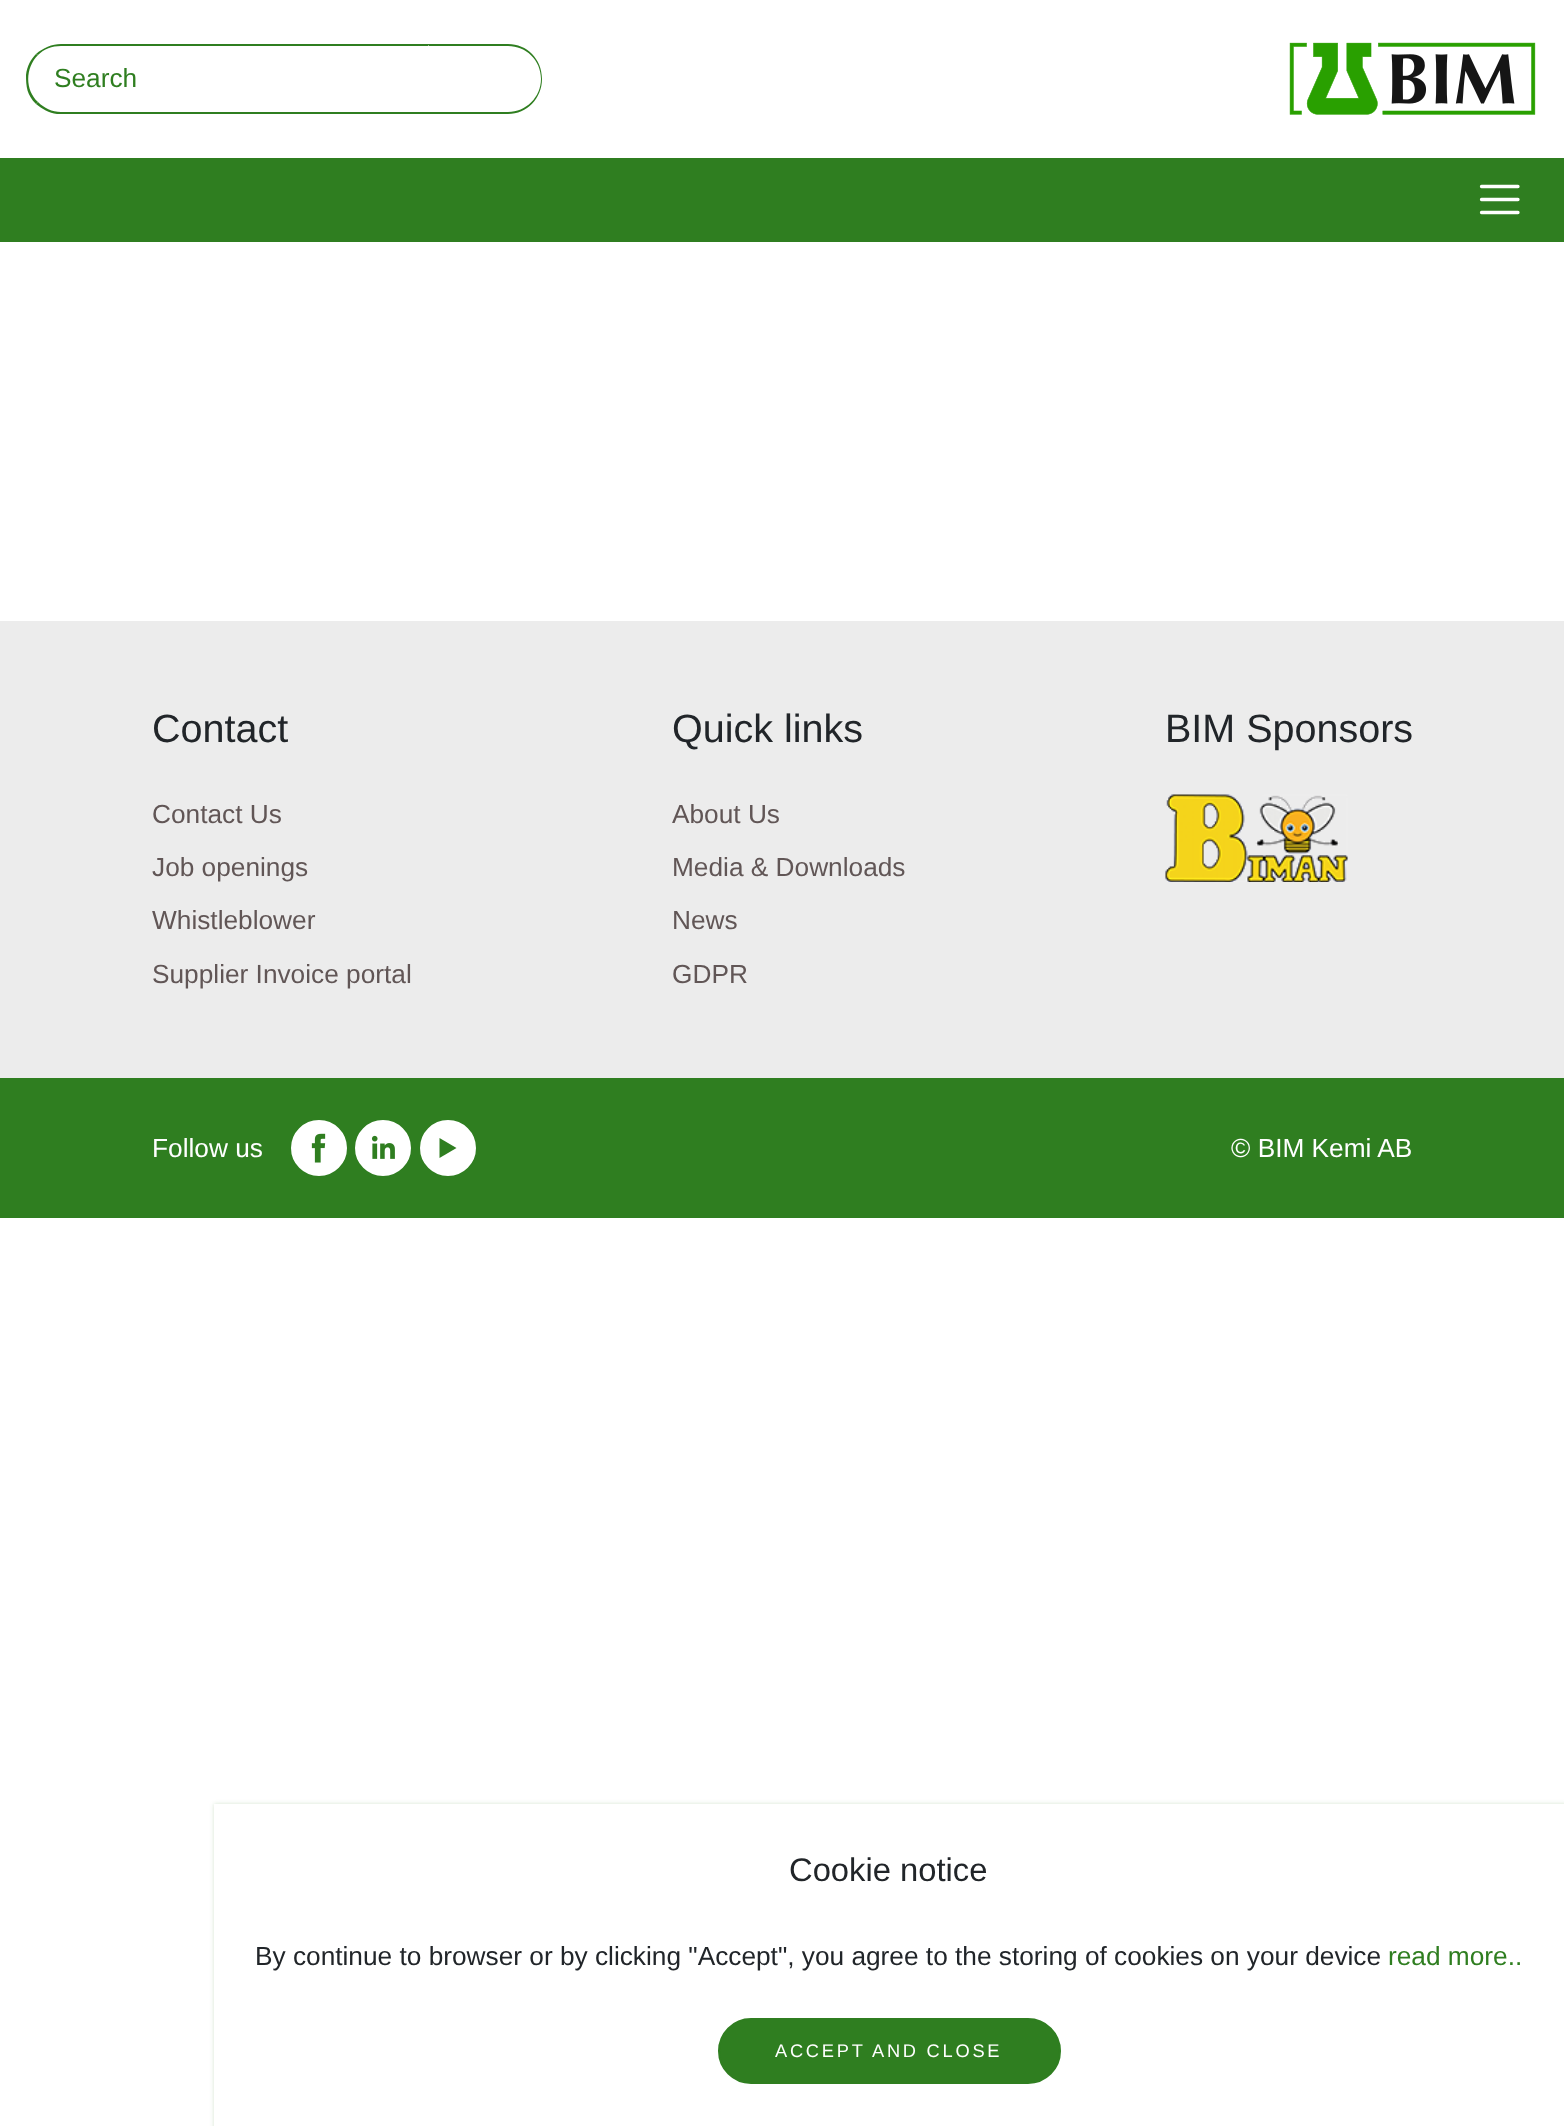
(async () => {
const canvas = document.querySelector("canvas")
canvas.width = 1564
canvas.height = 2126
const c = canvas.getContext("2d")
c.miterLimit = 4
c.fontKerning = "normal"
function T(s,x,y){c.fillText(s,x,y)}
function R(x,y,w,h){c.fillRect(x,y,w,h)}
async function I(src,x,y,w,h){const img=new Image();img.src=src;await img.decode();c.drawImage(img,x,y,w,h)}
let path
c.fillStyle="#fff"
R(0,0,1564,2126)
c.fillStyle="#2f7e20"
path = new Path2D("M61 44c-9 0-18 4-25 10l2 1c6-6 14-9 23-9h367l2-2z")
c.fill(path)
path = new Path2D("M57 114c-8-1-15-5-21-10l2-2c6 6 14 10 23 10h368l1 2z")
c.fill(path)
path = new Path2D("M26 75c1-9 5-16 10-21l2 1c-13 13-13 35 0 47l-2 2c-9-9-10-17-10-29z")
c.fill(path)
c.font="26.25px Liberation Sans"
T("Search",54,87)
path = new Path2D("M429 44h79c19 0 34 15 34 35c0 19-15 35-34 35h-79zm0 2h79c18 0 33 14 33 33c0 18-15 33-33 33h-79z")
c.fill(path,"evenodd")
await I("1.png",1289,42,247,73)
R(0,158,1564,84)
path = new Path2D("M1481.5 186.5h36.5m-36.5 13h36.5m-36.5 13h36.5")
c.strokeStyle="#fff"
c.lineWidth=3.3
c.lineCap="round"
c.stroke(path)
c.fillStyle="#ececec"
R(0,621,1564,457)
c.font="39.5px Liberation Sans"
c.fillStyle="#212529"
T("Contact",152,742)
c.font="26.25px Liberation Sans"
c.fillStyle="#615656"
T("Contact Us",152,823)
T("Job openings",152,876)
T("Whistleblower",152,929)
T("Supplier Invoice portal",152,983)
c.font="39.5px Liberation Sans"
c.fillStyle="#212529"
T("Quick links",672,742)
c.font="26.25px Liberation Sans"
c.fillStyle="#615656"
T("About Us",672,823)
T("Media & Downloads",672,876)
T("News",672,929)
T("GDPR",672,983)
c.font="39.5px Liberation Sans"
c.fillStyle="#212529"
T("BIM Sponsors",1165,742)
await I("2.png",1165,794,183,88)
c.fillStyle="#2f7e20"
R(0,1078,1564,140)
c.font="26.25px Liberation Sans"
c.fillStyle="#fff"
T("Follow us",152,1157)
c.beginPath()
c.arc(319,1148,26,0,7)
c.fill()
c.lineWidth=4
c.stroke()
await I("3.png",311,1133,15,30)
c.beginPath()
c.arc(383,1148,26,0,7)
c.fill()
c.stroke()
await I("4.png",371,1135,24,24)
c.beginPath()
c.arc(448,1148,26,0,7)
c.fill()
c.stroke()
c.fillStyle="#2f7e20"
path = new Path2D("M439.5 1138l17 10l-17 10z")
c.fill(path)
c.fillStyle="#fff"
T("© BIM Kemi AB",1231,1157)
c.fillStyle="#2f7e2033"
c.filter="blur(2px)"
c.beginPath()
c.rect(214,1804,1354,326)
c.fill()
c.filter="none"
c.fillStyle="#fff"
R(214,1804,1350,322)
c.font="32.75px Liberation Sans"
c.fillStyle="#212529"
T("Cookie notice",789,1881)
c.font="26.25px Liberation Sans"
T("By continue to browser or by clicking \"Accept\", you agree to the storing of cookies on your device",255,1965)
c.fillStyle="#2f7e20"
T("read more..",1388,1965)
c.beginPath()
c.roundRect(719,2019,341,64,32)
c.fill()
c.strokeStyle="#2f7e20"
c.lineWidth=2
c.stroke()
c.letterSpacing="2.75px"
c.font="18.25px Liberation Sans"
c.fillStyle="#fff"
T("ACCEPT AND CLOSE",775,2057)
})()
